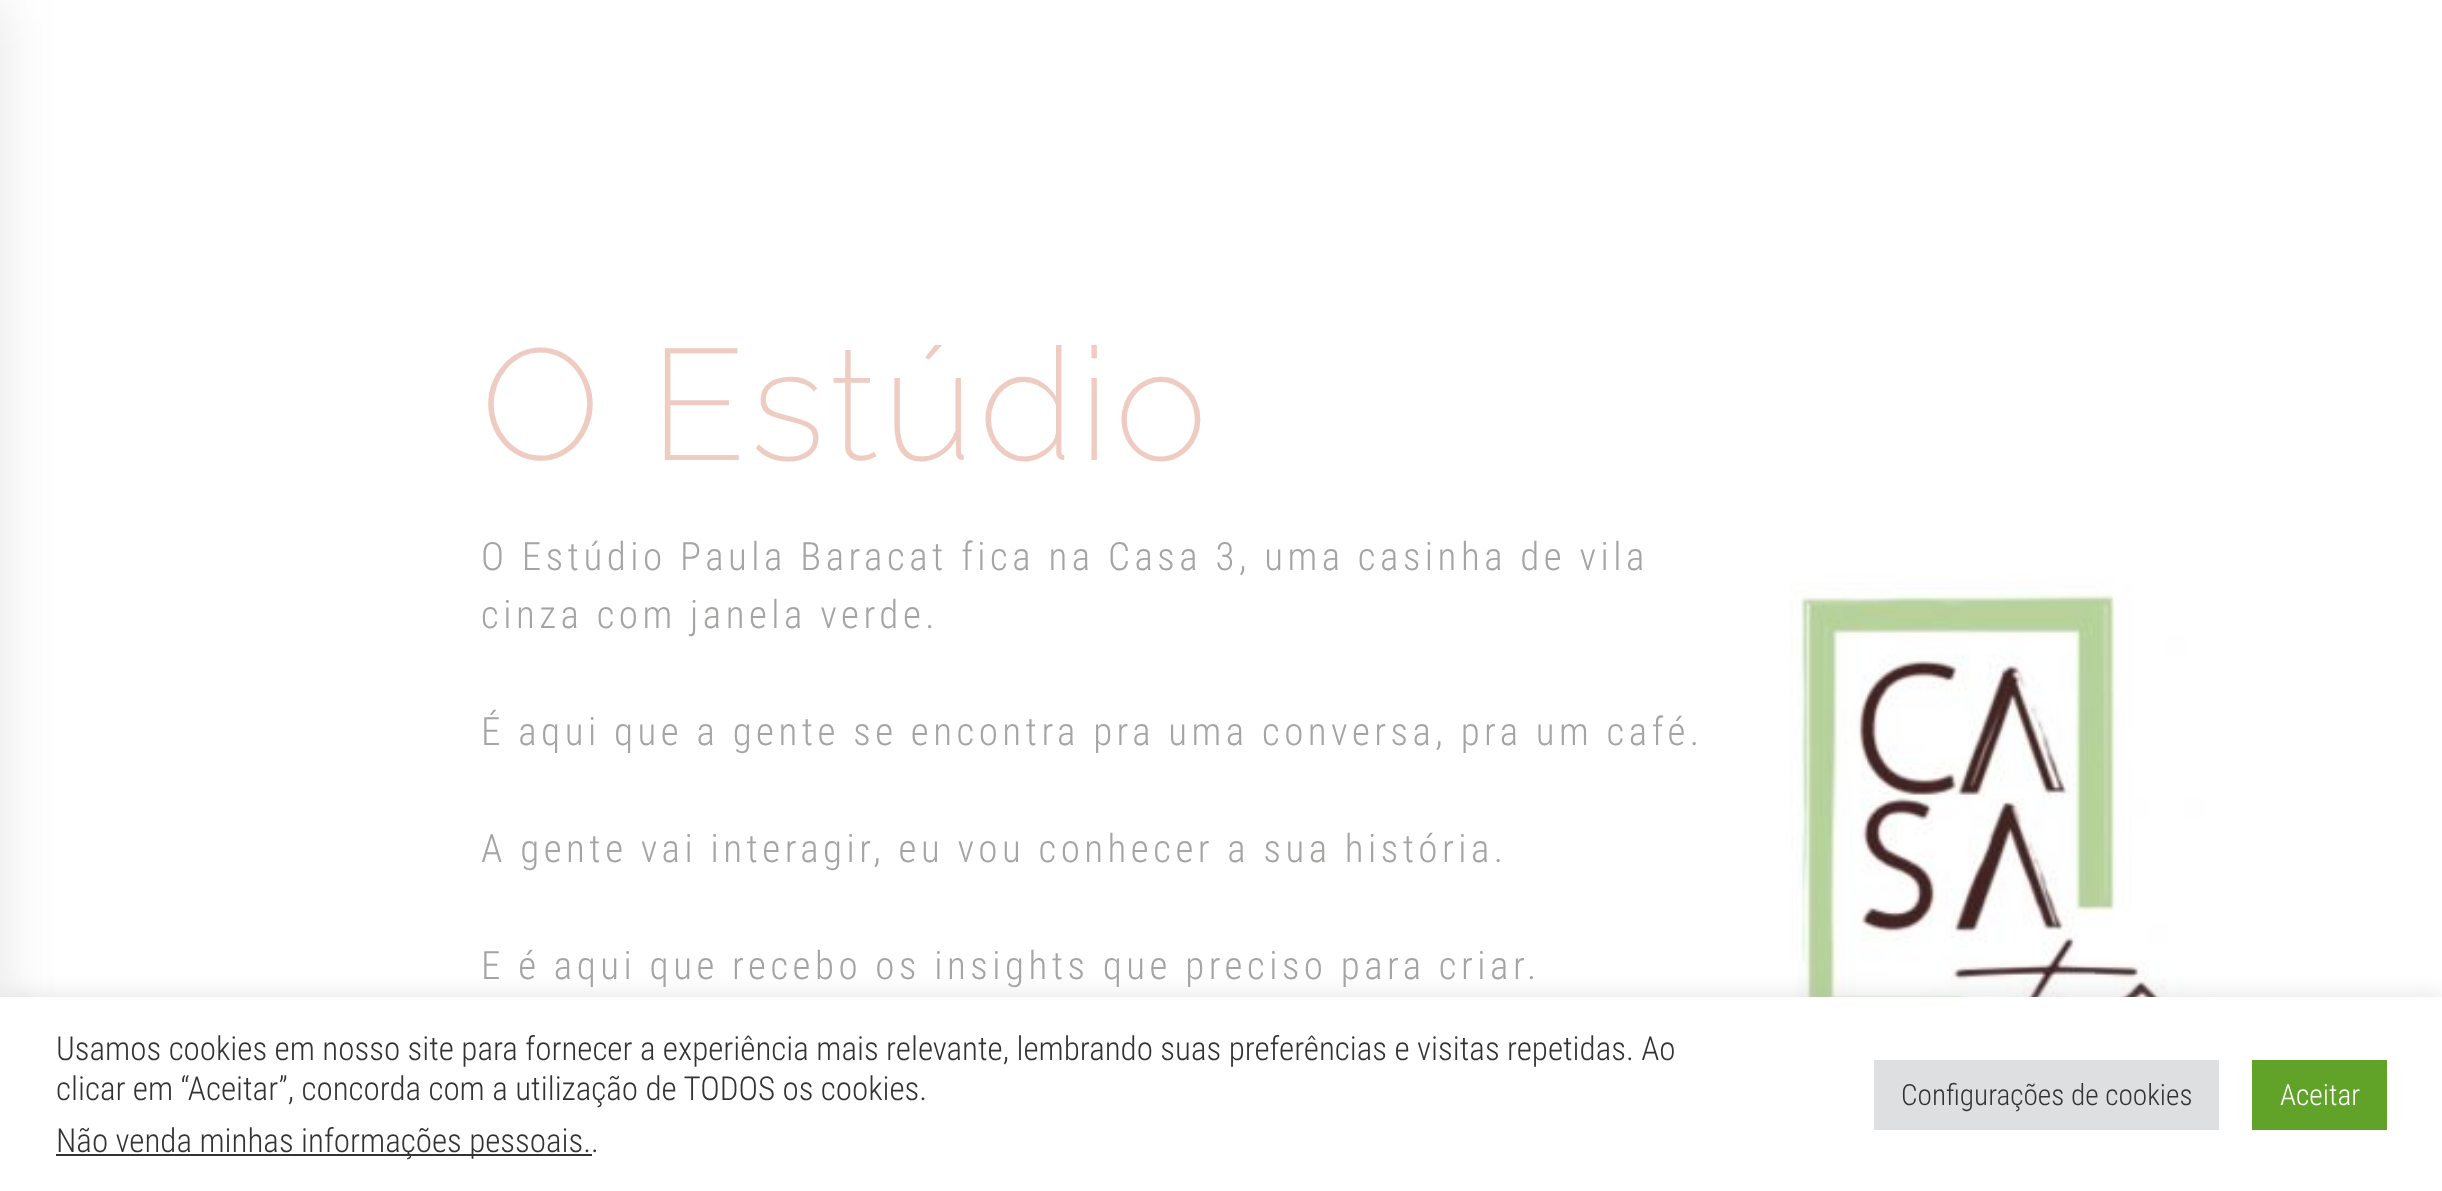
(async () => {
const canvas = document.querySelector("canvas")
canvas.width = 2442
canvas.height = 1191
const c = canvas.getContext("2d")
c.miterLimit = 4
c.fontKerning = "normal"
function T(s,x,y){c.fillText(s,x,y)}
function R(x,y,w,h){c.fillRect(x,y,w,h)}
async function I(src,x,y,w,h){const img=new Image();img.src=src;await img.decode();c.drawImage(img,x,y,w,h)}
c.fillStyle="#fff"
R(0,0,2442,1191)
c.fillStyle="#0000001a"
c.filter="blur(28px)"
c.beginPath()
c.rect(-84,0,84,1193)
c.fill()
c.filter="none"
c.letterSpacing="4.5px"
c.font="200 157.5px Raleway"
c.fillStyle="#efccc2"
T("O Estúdio",481,460)
c.font="300 39px Roboto Condensed"
c.fillStyle="#a4a4a3"
T("O Estúdio Paula Baracat fica na Casa 3, uma casinha de vila",481,570)
T("cinza com janela verde.",481,628)
T("É aqui que a gente se encontra pra uma conversa, pra um café.",481,745)
T("A gente vai interagir, eu vou conhecer a sua história.",481,862)
T("E é aqui que recebo os insights que preciso para criar.",481,979)
await I("1.png",1789,573,486,424)
c.fillStyle="#acabab4d"
c.filter="blur(11px)"
c.beginPath()
c.rect(0,995,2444,195)
c.fill()
c.filter="none"
c.fillStyle="#fff"
R(0,997,2442,194)
c.letterSpacing="0px"
c.font="300 33px Roboto Condensed"
c.fillStyle="#333"
T("Usamos cookies em nosso site para fornecer a experiência mais relevante, lembrando suas preferências e visitas repetidas. Ao",56,1060)
T("clicar em “Aceitar”, concorda com a utilização de TODOS os cookies.",56,1100)
R(56,1154,536,2)
T("Não venda minhas informações pessoais.",56,1152)
T(".",591,1152)
c.fillStyle="#dedfe0"
R(1874,1060,345,70)
c.font="300 29.25px Roboto Condensed"
c.fillStyle="#333"
T("Configurações de cookies",1901,1105)
c.fillStyle="#61a229"
R(2252,1060,135,70)
c.fillStyle="#fff"
T("Aceitar",2280,1105)
})()
